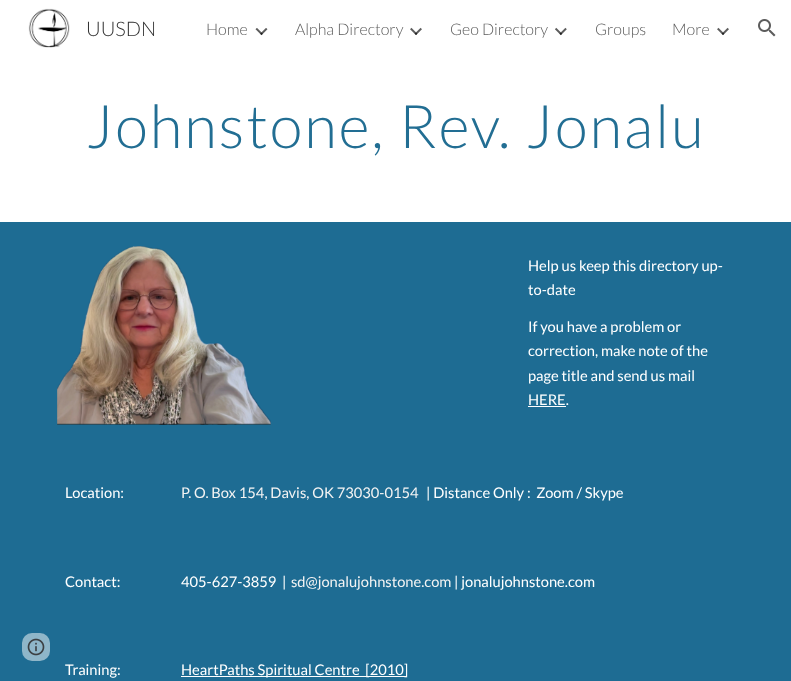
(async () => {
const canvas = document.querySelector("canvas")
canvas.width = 791
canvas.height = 681
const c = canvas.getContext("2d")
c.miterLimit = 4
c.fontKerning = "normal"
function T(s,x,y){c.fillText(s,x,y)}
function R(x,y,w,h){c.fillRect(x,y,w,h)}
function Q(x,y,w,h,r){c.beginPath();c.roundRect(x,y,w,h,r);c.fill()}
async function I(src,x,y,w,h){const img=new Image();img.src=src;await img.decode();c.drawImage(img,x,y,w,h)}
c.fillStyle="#fff"
R(0,0,791,681)
await I("1.png",28,8,42,40)
c.font="300 20px Lato"
c.fillStyle="#333"
T("UUSDN",86,36)
c.font="300 16px Lato"
c.fillStyle="#5c5c5c"
T("Home",206,35)
await I("2.png",255,28,13,8)
T("Alpha Directory",295,35)
await I("3.png",410,27,12,8)
T("Geo Directory",450,35)
await I("4.png",555,27,12,9)
T("Groups",595,35)
T("More",672,35)
await I("3.png",717,27,12,8)
await I("5.png",758,19,18,18)
c.fillStyle="#1e6c93"
R(0,222,791,459)
c.fillStyle="#8fb6c9"
Q(22,633,28,28,10)
await I("6.png",27,638,18,18)
c.letterSpacing="2px"
c.font="300 60px Lato"
c.fillStyle="#226e93"
T("Johnstone, Rev. Jonalu",86,148)
await I("7.png",57,246,214,179)
c.letterSpacing="0px"
c.font="14.7px Lato"
c.fillStyle="#fff"
T("Help us keep this directory up-",528,271)
T("to-date",528,295)
T("If you have a problem or",528,332)
T("correction, make note of the",528,356)
T("page title and send us mail",528,381)
T("HERE.",528,405)
R(528,406,38,1)
T("Location:",65,498)
c.fillStyle="#f3f3f3"
T("P. O. Box 154, Davis, OK 73030-0154",181,498)
c.fillStyle="#fff"
T("| Distance Only :  Zoom / Skype",426,498)
T("Contact:",65,587)
T("405-627-3859  |",181,587)
c.fillStyle="#f3f3f3"
T("sd@jonalujohnstone.com",291,587)
c.fillStyle="#fff"
T("| jonalujohnstone.com",454,587)
T("Training:",65,675)
R(181,676,226,1)
T("HeartPaths Spiritual Centre  [2010]",181,675)
})()
